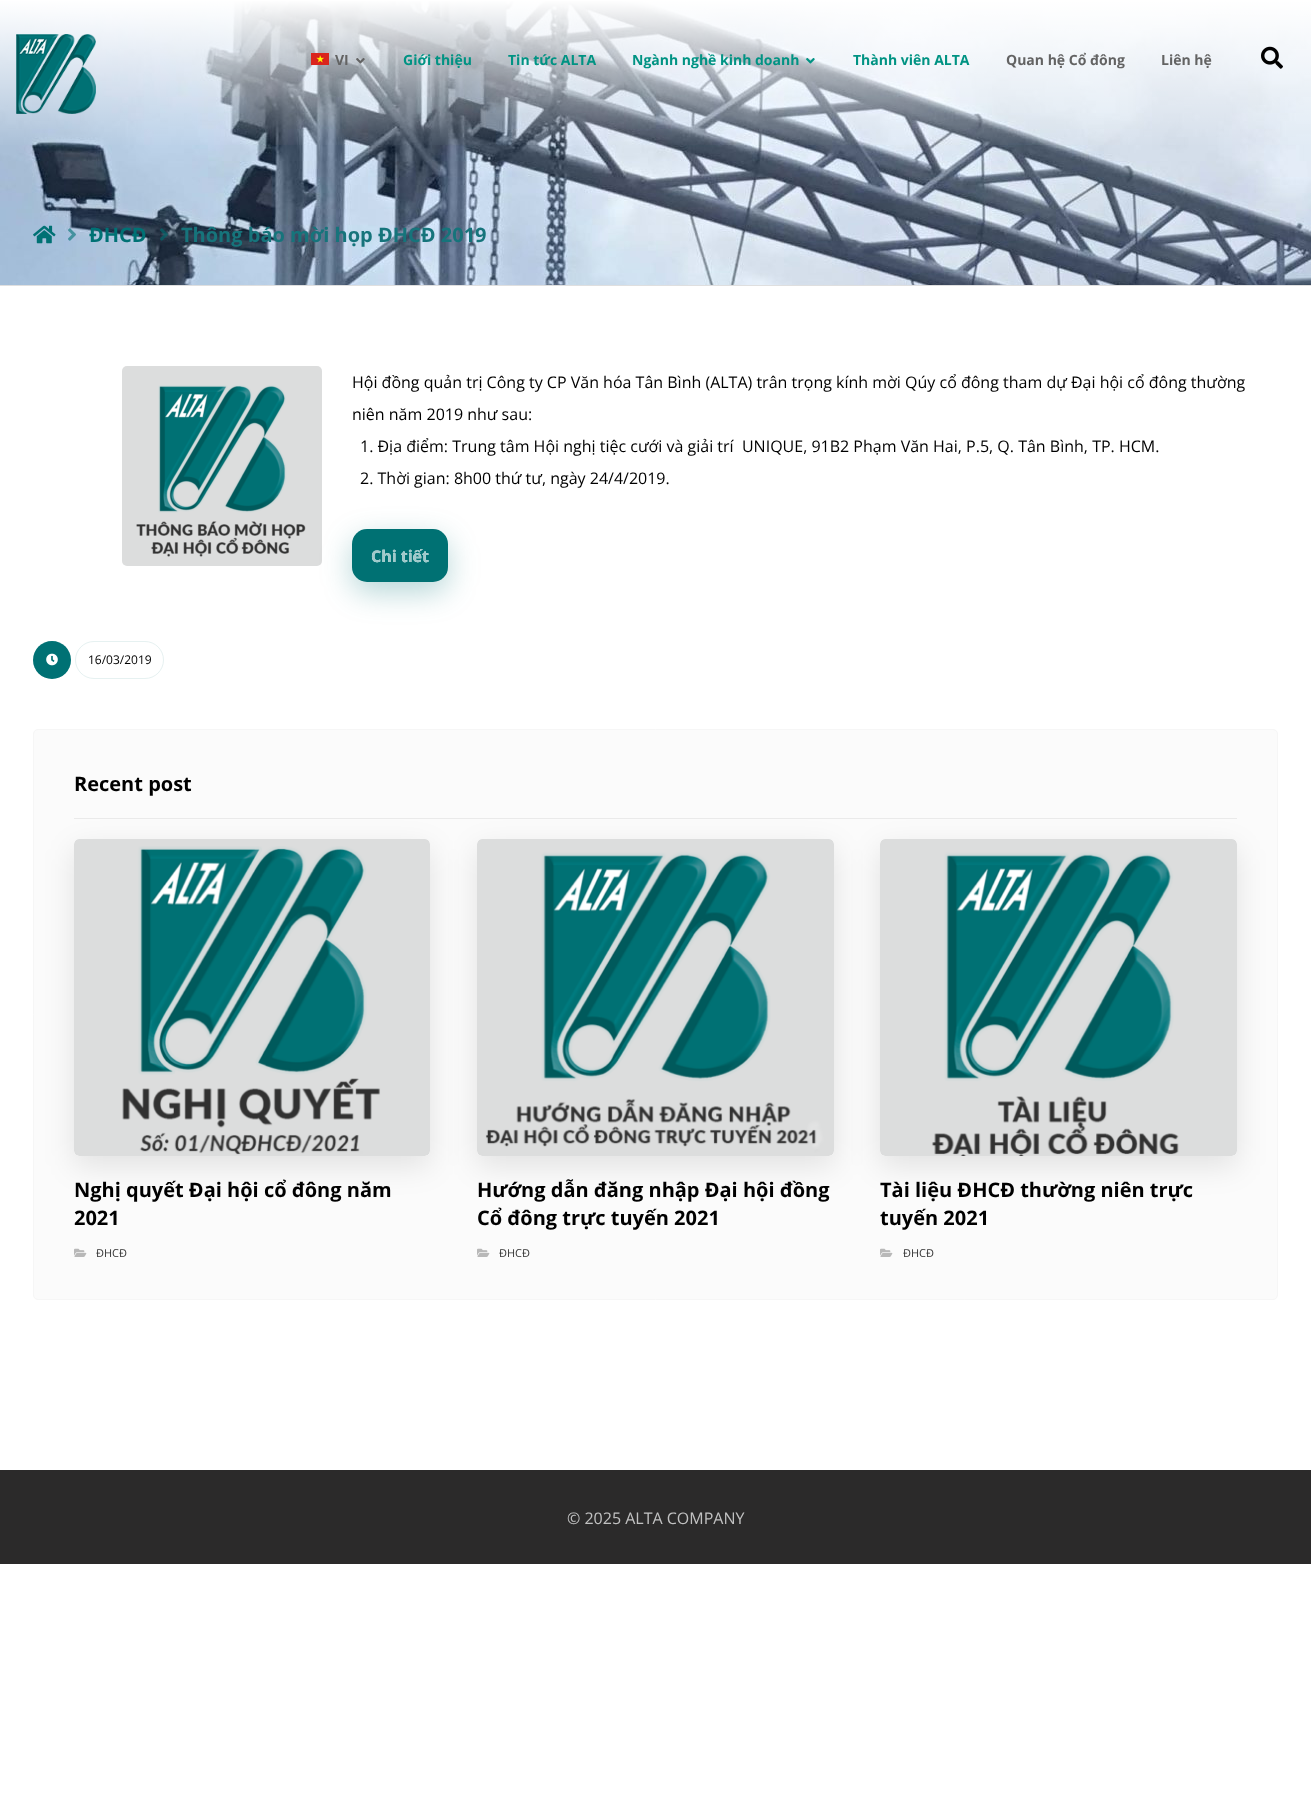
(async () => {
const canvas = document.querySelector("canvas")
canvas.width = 1311
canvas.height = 1804
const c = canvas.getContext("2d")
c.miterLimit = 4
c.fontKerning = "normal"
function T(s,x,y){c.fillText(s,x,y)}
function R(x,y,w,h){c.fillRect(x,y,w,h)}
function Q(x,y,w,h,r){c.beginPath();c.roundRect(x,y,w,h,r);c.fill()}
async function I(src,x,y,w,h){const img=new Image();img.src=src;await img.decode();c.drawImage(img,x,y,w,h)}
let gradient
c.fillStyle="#fff"
R(0,0,1311,1804)
await I("6.png",0,1,1311,284)
gradient = c.createLinearGradient(656,0,656,148)
gradient.addColorStop(0,"#fff")
gradient.addColorStop(1,"#ffffff00")
c.fillStyle = gradient
R(0,1,1311,144)
await I("1.png",16,34,80,80)
await I("2.png",311,53,18,12)
c.font="bold 14px Open Sans"
c.fillStyle="#636363"
T("VI",335,65)
await I("3.png",356,58,9,6)
c.fillStyle="#009383"
T("Giới thiệu",403,65)
T("Tin tức ALTA",508,65)
T("Ngành nghề kinh doanh",632,65)
await I("4.png",806,58,9,6)
T("Thành viên ALTA",853,65)
c.fillStyle="#636363"
T("Quan hệ Cổ đông",1006,65)
T("Liên hệ",1161,65)
await I("5.png",1261,46,22,23)
c.fillStyle="#dfdfdf"
R(0,285,1311,1)
await I("7.png",33,225,23,19)
await I("8.png",68,228,8,13)
c.font="bold 20px Open Sans"
c.fillStyle="#007174"
T("ĐHCĐ",89,242)
await I("9.png",160,228,8,13)
c.fillStyle="#16747b"
T("Thông báo mời họp ĐHCĐ 2019",181,242)
await I("10.png",122,366,200,200)
c.font="16px Open Sans"
c.fillStyle="#000"
T("Hội đồng quản trị Công ty CP Văn hóa Tân Bình (ALTA) trân trọng kính mời Qúy cổ đông tham dự Đại hội cổ đông thường",352,388)
T("niên năm 2019 như sau:",352,420)
T("1. Địa điểm: Trung tâm Hội nghị tiệc cưới và giải trí  UNIQUE, 91B2 Phạm Văn Hai, P.5, Q. Tân Bình, TP. HCM.",360,452)
T("2. Thời gian: 8h00 thứ tư, ngày 24/4/2019.",360,484)
c.fillStyle="#0071744a"
c.filter="blur(15px)"
c.beginPath()
c.roundRect(352,539,96,53,15)
c.fill()
c.filter="none"
c.fillStyle="#007173"
Q(352,529,96,53,15)
c.font="bold 16px Open Sans"
c.fillStyle="#fff"
T("Chi tiết",371,562)
c.fillStyle="#9fc9ca"
T("Chi tiết",371,562)
c.fillStyle="#007174"
c.beginPath()
c.arc(52,660,19,0,7)
c.fill()
c.beginPath()
c.arc(52,660,18.5,0,7)
c.strokeStyle="#0071741a"
c.stroke()
await I("11.png",46,653,12,13)
c.beginPath()
c.roundRect(75.5,641.5,88,37,18.5)
c.strokeStyle="#e6f1f1"
c.stroke()
c.font="12px Open Sans"
c.fillStyle="#000"
T("16/03/2019",88,664)
c.fillStyle="#fbfbfb"
c.beginPath()
c.roundRect(33.5,729.5,1244,570,4.5)
c.fill()
c.strokeStyle="#f6f6f6"
c.stroke()
c.fillStyle="#eaeaea"
R(74,818,1163,1)
c.font="bold 20px Open Sans"
c.fillStyle="#000"
T("Recent post",74,791)
c.fillStyle="#0000001a"
c.filter="blur(15px)"
c.beginPath()
c.roundRect(74,849,356,317,5)
c.fill()
c.filter="none"
c.fillStyle="#fff"
Q(74,839,356,317,5)
await I("12.png",74,839,356,317)
c.fillStyle="#000"
T("Nghị quyết Đại hội cổ đông năm",74,1197)
T("2021",74,1225)
await I("13.png",74,1248,13,9)
c.font="11px Open Sans"
c.fillStyle="#323232"
T("ĐHCĐ",96,1257)
c.fillStyle="#0000001a"
c.filter="blur(15px)"
c.beginPath()
c.roundRect(477,849,357,317,5)
c.fill()
c.filter="none"
c.fillStyle="#fff"
Q(477,839,357,317,5)
await I("14.png",477,839,357,317)
c.font="bold 20px Open Sans"
c.fillStyle="#000"
T("Hướng dẫn đăng nhập Đại hội đồng",477,1197)
T("Cổ đông trực tuyến 2021",477,1225)
await I("13.png",477,1248,13,9)
c.font="11px Open Sans"
c.fillStyle="#323232"
T("ĐHCĐ",499,1257)
c.fillStyle="#0000001a"
c.filter="blur(15px)"
c.beginPath()
c.roundRect(880,849,357,317,5)
c.fill()
c.filter="none"
c.fillStyle="#fff"
Q(880,839,357,317,5)
await I("15.png",880,839,357,317)
c.font="bold 20px Open Sans"
c.fillStyle="#000"
T("Tài liệu ĐHCĐ thường niên trực",880,1197)
T("tuyến 2021",880,1225)
await I("13.png",880,1248,13,9)
c.font="11px Open Sans"
c.fillStyle="#323232"
T("ĐHCĐ",903,1257)
c.fillStyle="#2b2a2a"
R(0,1470,1311,94)
c.font="16px Open Sans"
c.fillStyle="#c1c1c1"
T("© 2025 ALTA COMPANY",567,1524)
})()
